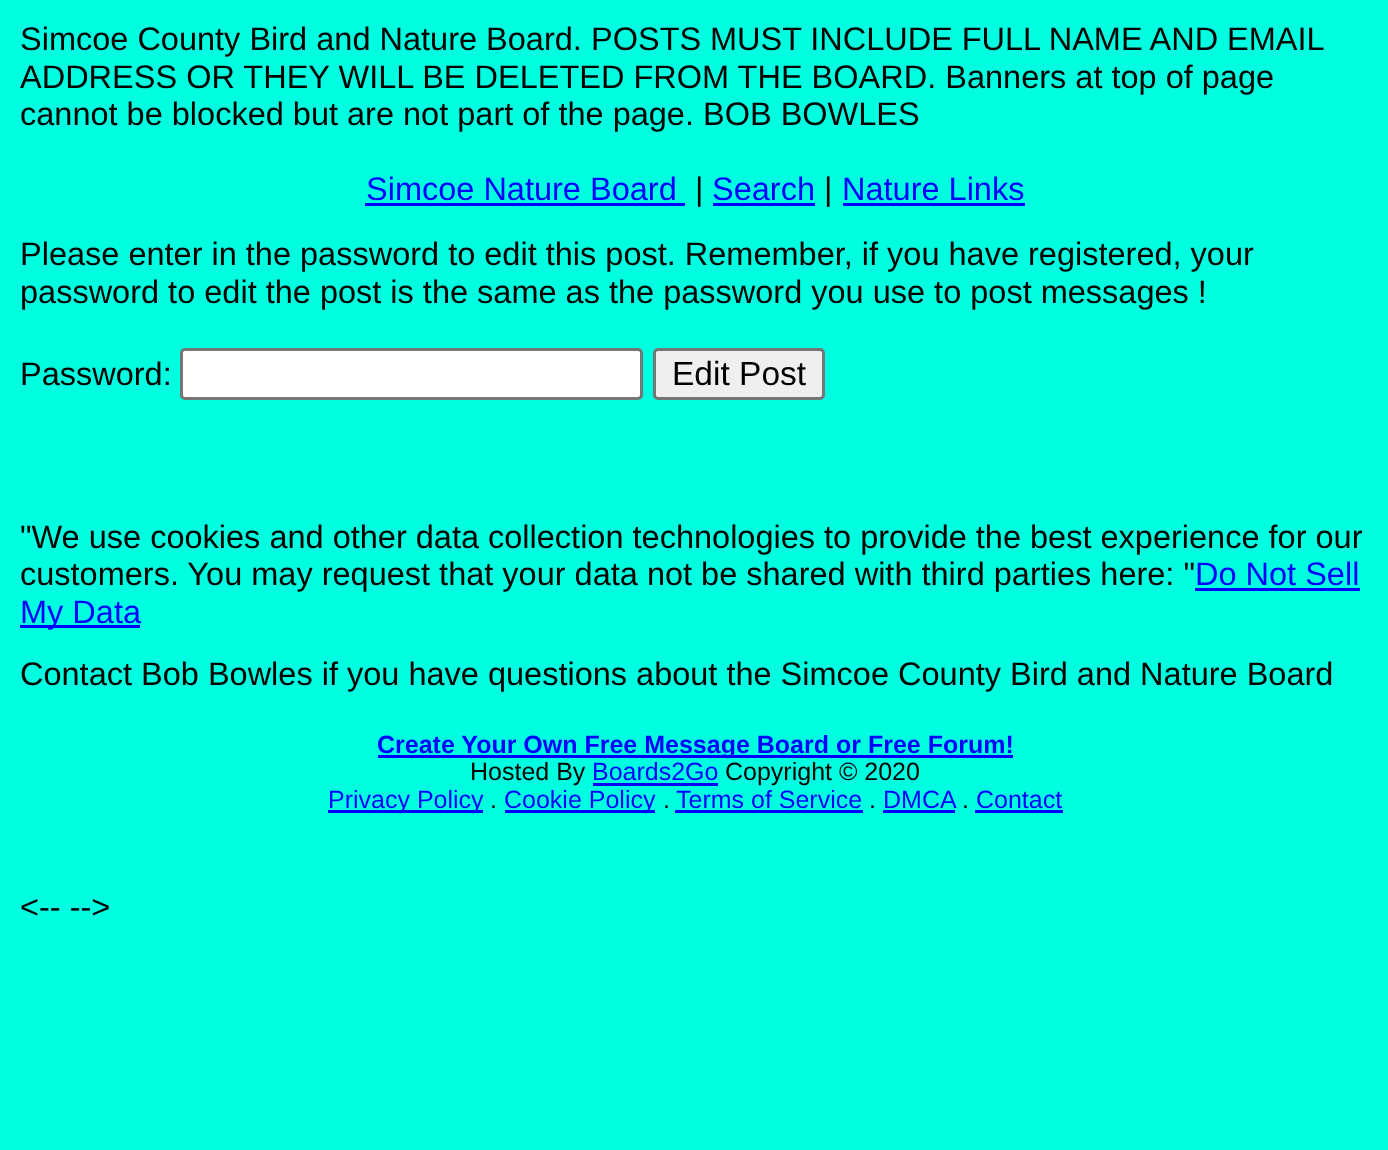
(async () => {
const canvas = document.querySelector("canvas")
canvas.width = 1388
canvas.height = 1150
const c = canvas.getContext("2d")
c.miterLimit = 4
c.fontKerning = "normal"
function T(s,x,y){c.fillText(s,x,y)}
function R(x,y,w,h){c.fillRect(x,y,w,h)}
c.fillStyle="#00ffe1"
R(0,0,1388,1150)
c.font="32.5px Liberation Sans"
c.fillStyle="#000"
T("Simcoe County Bird and Nature Board.",20,50)
c.wordSpacing="-0.25px"
T("POSTS MUST INCLUDE FULL NAME AND EMAIL",591,50)
c.wordSpacing="0px"
T("ADDRESS OR THEY WILL BE DELETED FROM THE BOARD. Banners at top of page",20,88)
T("cannot be blocked but are not part of the page. BOB BOWLES",20,125)
c.fillStyle="#00f"
T("Simcoe Nature Board",366,200)
R(365,203,320,3)
c.fillStyle="#000"
T("|",695,200)
c.fillStyle="#00f"
T("Search",712,200)
R(713,203,102,3)
c.fillStyle="#000"
T("|",824,200)
c.fillStyle="#00f"
T("Nature Links",842,200)
R(843,203,182,3)
c.fillStyle="#000"
T("Please enter in the password to edit this post. Remember, if you have registered, your",20,265)
T("password to edit the post is the same as the password you use to post messages !",20,303)
T("Password:",20,385)
c.fillStyle="#fff"
c.beginPath()
c.roundRect(181.5,349.5,460,49,3.5)
c.fill()
c.strokeStyle="#767676"
c.lineWidth=3
c.stroke()
c.fillStyle="#efefef"
c.beginPath()
c.roundRect(654.5,349.5,169,49,3.5)
c.fill()
c.stroke()
c.font="33.5px Liberation Sans"
c.fillStyle="#000"
T("Edit Post",672,385)
c.font="32.5px Liberation Sans"
T("\"We use cookies and other data collection technologies to provide the best experience for our",20,548)
T("customers. You may request that your data not be shared with third parties here: \"",20,585)
c.fillStyle="#00f"
T("Do Not Sell",1195,585)
R(1195,588,165,3)
R(20,625,120,3)
T("My Data",20,623)
c.fillStyle="#000"
T("Contact Bob Bowles if you have questions about the Simcoe County Bird and Nature Board",20,685)
c.fillStyle="#00f"
R(378,755,635,3)
c.font="bold 25px Liberation Sans"
T("Create Your Own Free Message Board or Free Forum!",377,753)
c.font="25px Liberation Sans"
c.fillStyle="#000"
T("Hosted By",470,780)
c.fillStyle="#00f"
T("Boards2Go",592,780)
R(593,783,125,3)
c.fillStyle="#000"
T("Copyright © 2020",725,780)
c.fillStyle="#00f"
R(328,810,155,3)
T("Privacy Policy",328,808)
c.fillStyle="#000"
T(".",490,808)
c.fillStyle="#00f"
R(505,810,150,3)
T("Cookie Policy",504,808)
c.fillStyle="#000"
T(".",663,808)
c.fillStyle="#00f"
T("Terms of Service",676,808)
R(675,810,188,3)
c.fillStyle="#000"
T(".",869,808)
c.fillStyle="#00f"
T("DMCA",883,808)
R(883,810,72,3)
c.fillStyle="#000"
T(".",962,808)
c.fillStyle="#00f"
T("Contact",976,808)
R(975,810,88,3)
c.font="32.5px Liberation Sans"
c.fillStyle="#000"
T("<-- -->",20,918)
})()
